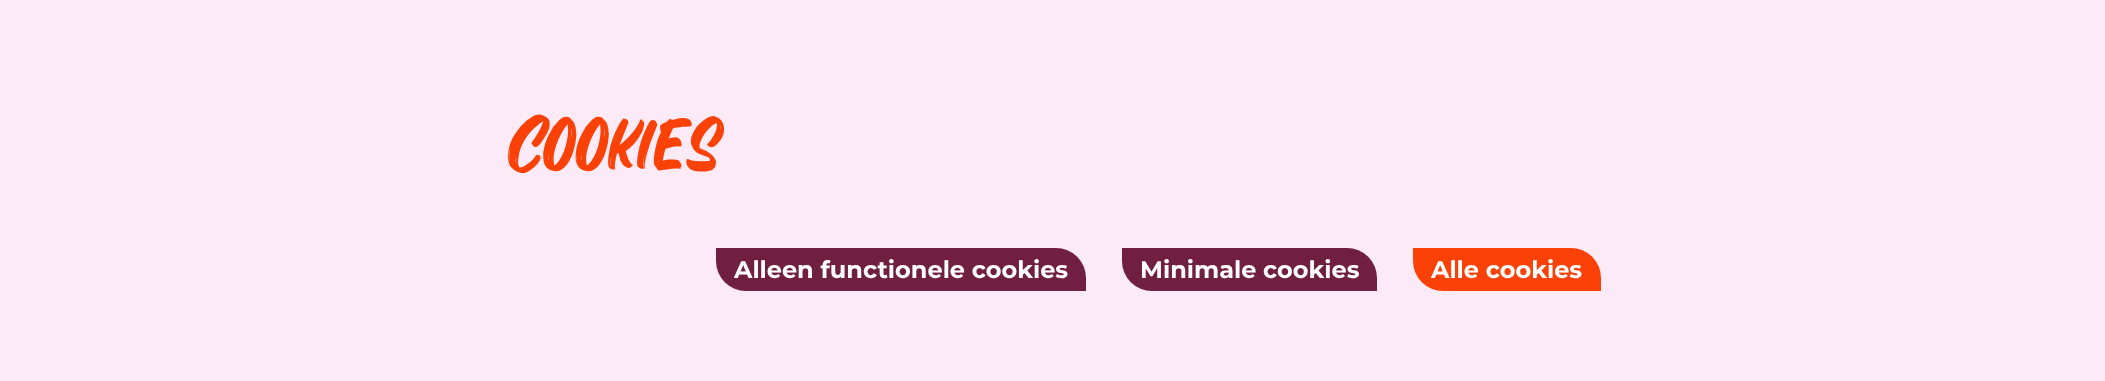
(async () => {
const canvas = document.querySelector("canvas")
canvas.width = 2105
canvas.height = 381
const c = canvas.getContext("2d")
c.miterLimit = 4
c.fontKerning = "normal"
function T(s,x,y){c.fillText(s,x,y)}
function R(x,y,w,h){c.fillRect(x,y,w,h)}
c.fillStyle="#fcebf7"
R(0,0,2105,381)
c.font="90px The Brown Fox"
c.fillStyle="#fa4208"
T("Cookies",506,171)
c.fillStyle="#701f40"
c.beginPath()
c.roundRect(716,248,370,43,[0,30,0,30])
c.fill()
c.font="bold 24px Montserrat"
c.fillStyle="#fff"
T("Alleen functionele cookies",734,278)
c.fillStyle="#701f40"
c.beginPath()
c.roundRect(1122,248,255,43,[0,30,0,30])
c.fill()
c.fillStyle="#fff"
T("Minimale cookies",1140,278)
c.fillStyle="#fa4208"
c.beginPath()
c.roundRect(1413,248,188,43,[0,30,0,30])
c.fill()
c.fillStyle="#fff"
T("Alle cookies",1431,278)
})()
